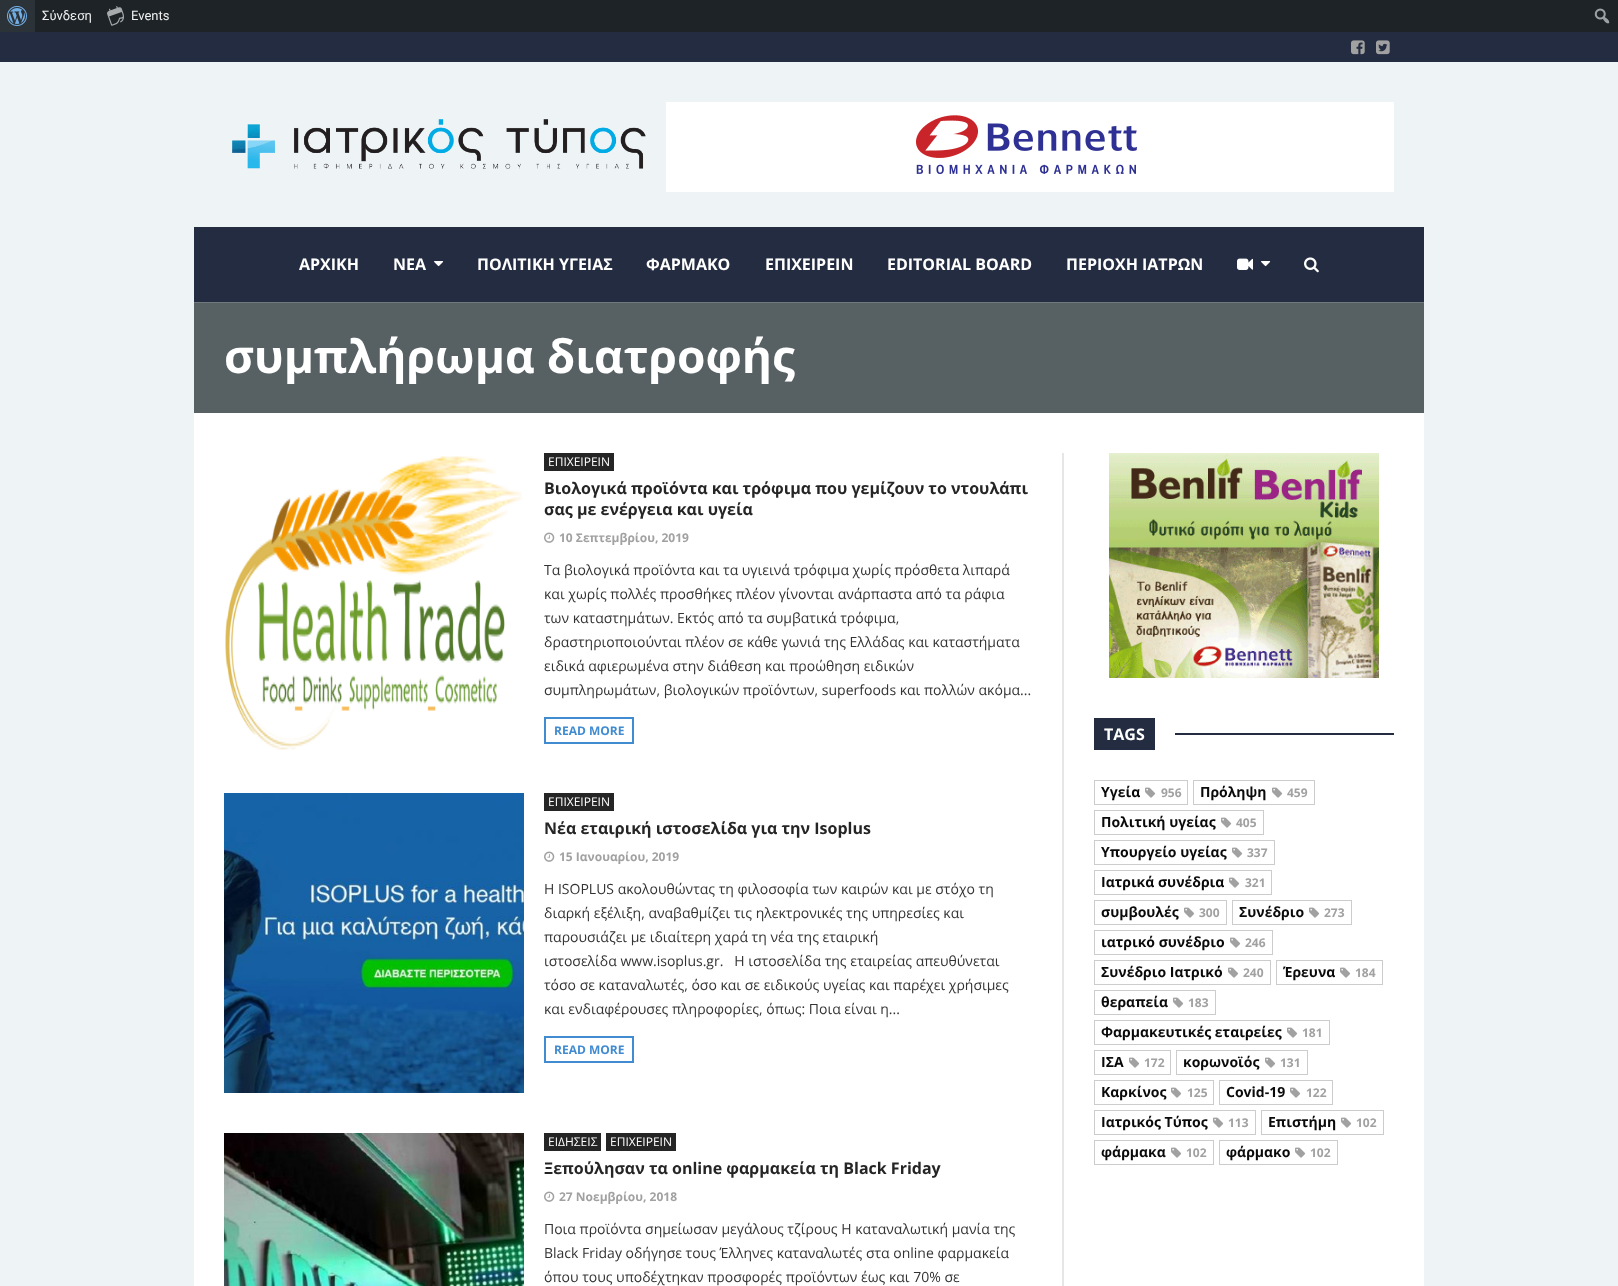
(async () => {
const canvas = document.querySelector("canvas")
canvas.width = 1618
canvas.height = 1286
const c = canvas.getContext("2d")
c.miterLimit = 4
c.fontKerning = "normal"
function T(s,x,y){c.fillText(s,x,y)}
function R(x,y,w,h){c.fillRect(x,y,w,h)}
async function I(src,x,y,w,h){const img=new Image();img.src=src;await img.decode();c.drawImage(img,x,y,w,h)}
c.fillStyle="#eef3f6"
R(0,0,1618,1286)
c.fillStyle="#1d2327"
R(35,0,1583,32)
c.fillStyle="#2c3338"
R(0,0,35,32)
await I("1.png",7,6,20,20)
c.font="13px Roboto"
c.fillStyle="#f0f0f1"
T("Σύνδεση",42,20)
await I("2.png",107,6,17,20)
T("Events",131,20)
await I("3.png",1594,8,16,16)
c.fillStyle="#242c41"
R(0,32,1618,30)
await I("4.png",1351,40,14,15)
await I("5.png",1376,40,14,15)
await I("6.png",232,119,414,50)
await I("7.png",666,102,728,90)
c.fillStyle="#f1f5f7"
R(193,227,1,75)
R(1424,227,1,75)
c.fillStyle="#70797b"
R(194,302,1230,1)
c.fillStyle="#242c41"
R(194,227,1230,75)
c.font="bold 16px Open Sans"
c.fillStyle="#fff"
T("ΑΡΧΙΚΗ",299,270)
T("ΝΕΑ",393,270)
await I("8.png",434,261,10,6)
T("ΠΟΛΙΤΙΚΗ ΥΓΕΙΑΣ",477,270)
T("ΦΑΡΜΑΚΟ",646,270)
T("ΕΠΙΧΕΙΡΕΙΝ",765,270)
T("EDITORIAL BOARD",887,270)
T("ΠΕΡΙΟΧΗ ΙΑΤΡΩΝ",1066,270)
await I("9.png",1237,258,16,12)
await I("8.png",1261,261,10,6)
await I("10.png",1304,257,15,16)
c.fillStyle="#576164"
R(194,303,1230,110)
c.font="bold 46px Open Sans"
c.fillStyle="#fff"
T("συμπλήρωμα διατροφής",224,373)
R(194,413,1230,873)
await I("11.png",225,456,297,294)
c.fillStyle="#252525"
R(544,453,70,18)
c.font="12px Open Sans"
c.fillStyle="#fff"
T("ΕΠΙΧΕΙΡΕΙΝ",548,466)
c.font="bold 16px Open Sans"
c.fillStyle="#252525"
T("Βιολογικά προϊόντα και τρόφιμα που γεμίζουν το ντουλάπι",544,494)
T("σας με ενέργεια και υγεία",544,515)
await I("12.png",544,532,11,11)
c.font="bold 12px Open Sans"
c.fillStyle="#a1a1a1"
T("10 Σεπτεμβρίου, 2019",559,542)
c.font="14px Open Sans"
c.fillStyle="#333"
T("Τα βιολογικά προϊόντα και τα υγιεινά τρόφιμα χωρίς πρόσθετα λιπαρά",544,575)
T("και χωρίς πολλές προσθήκες πλέον γίνονται ανάρπαστα από τα ράφια",544,599)
T("των καταστημάτων. Εκτός από τα συμβατικά τρόφιμα,",544,623)
T("δραστηριοποιούνται πλέον σε κάθε γωνιά της Ελλάδας και καταστήματα",544,647)
T("ειδικά αφιερωμένα στην διάθεση και προώθηση ειδικών",544,671)
T("συμπληρωμάτων, βιολογικών προϊόντων, superfoods και πολλών ακόμα...",544,695)
c.fillStyle="#418cd1"
R(632,717,2,27)
R(544,717,2,27)
R(544,742,90,2)
R(544,717,90,2)
c.font="bold 12px Open Sans"
T("READ MORE",554,735)
await I("13.png",224,793,300,300)
c.fillStyle="#252525"
R(544,793,70,18)
c.font="12px Open Sans"
c.fillStyle="#fff"
T("ΕΠΙΧΕΙΡΕΙΝ",548,806)
c.font="bold 16px Open Sans"
c.fillStyle="#252525"
T("Νέα εταιρική ιστοσελίδα για την Isoplus",544,834)
await I("12.png",544,851,11,11)
c.font="bold 12px Open Sans"
c.fillStyle="#a1a1a1"
T("15 Ιανουαρίου, 2019",559,861)
c.font="14px Open Sans"
c.fillStyle="#333"
T("Η ISOPLUS ακολουθώντας τη φιλοσοφία των καιρών και με στόχο τη",544,894)
T("διαρκή εξέλιξη, αναβαθμίζει τις ηλεκτρονικές της υπηρεσίες και",544,918)
T("παρουσιάζει με ιδιαίτερη χαρά τη νέα της εταιρική",544,942)
T("ιστοσελίδα www.isoplus.gr.   Η ιστοσελίδα της εταιρείας απευθύνεται",544,966)
T("τόσο σε καταναλωτές, όσο και σε ειδικούς υγείας και παρέχει χρήσιμες",544,990)
T("και ενδιαφέρουσες πληροφορίες, όπως: Ποια είναι η...",544,1014)
c.fillStyle="#418cd1"
R(632,1036,2,27)
R(544,1036,2,27)
R(544,1061,90,2)
R(544,1036,90,2)
c.font="bold 12px Open Sans"
T("READ MORE",554,1054)
await I("14.png",224,1133,300,153)
c.fillStyle="#252525"
R(544,1133,57,18)
c.font="12px Open Sans"
c.fillStyle="#fff"
T("ΕΙΔΗΣΕΙΣ",548,1146)
c.fillStyle="#252525"
R(606,1133,70,18)
c.fillStyle="#fff"
T("ΕΠΙΧΕΙΡΕΙΝ",610,1146)
c.font="bold 16px Open Sans"
c.fillStyle="#252525"
T("Ξεπούλησαν τα online φαρμακεία τη Black Friday",544,1174)
await I("12.png",544,1191,11,11)
c.font="bold 12px Open Sans"
c.fillStyle="#a1a1a1"
T("27 Νοεμβρίου, 2018",559,1201)
c.font="14px Open Sans"
c.fillStyle="#333"
T("Ποια προϊόντα σημείωσαν μεγάλους τζίρους Η καταναλωτική μανία της",544,1234)
T("Black Friday οδήγησε τους Έλληνες καταναλωτές στα online φαρμακεία",544,1258)
T("όπου τους υποδέχτηκαν προσφορές προϊόντων έως και 70% σε",544,1282)
c.fillStyle="#e6e6e6"
R(1062,453,2,833)
await I("15.png",1109,453,270,225)
c.fillStyle="#242c41"
R(1094,718,61,32)
c.font="bold 16px Open Sans"
c.fillStyle="#fff"
T("TAGS",1104,740)
c.fillStyle="#242c41"
R(1175,733,219,2)
c.strokeStyle="#ccc"
c.strokeRect(1094.5,780.5,93,24)
c.font="bold 14px Open Sans"
c.fillStyle="#0a0a0a"
T("Υγεία",1101,797)
await I("16.png",1145,787,11,11)
c.font="bold 12px Open Sans"
c.fillStyle="#a1a1a1"
T("956",1161,797)
c.strokeRect(1193.5,780.5,121,24)
c.font="bold 14px Open Sans"
c.fillStyle="#0a0a0a"
T("Πρόληψη",1200,797)
await I("16.png",1272,787,11,11)
c.font="bold 12px Open Sans"
c.fillStyle="#a1a1a1"
T("459",1287,797)
c.strokeRect(1094.5,810.5,169,24)
c.font="bold 14px Open Sans"
c.fillStyle="#0a0a0a"
T("Πολιτική υγείας",1101,827)
await I("16.png",1221,817,11,11)
c.font="bold 12px Open Sans"
c.fillStyle="#a1a1a1"
T("405",1236,827)
c.strokeRect(1094.5,840.5,180,24)
c.font="bold 14px Open Sans"
c.fillStyle="#0a0a0a"
T("Υπουργείο υγείας",1101,857)
await I("16.png",1232,847,11,11)
c.font="bold 12px Open Sans"
c.fillStyle="#a1a1a1"
T("337",1247,857)
c.strokeRect(1094.5,870.5,177,24)
c.font="bold 14px Open Sans"
c.fillStyle="#0a0a0a"
T("Ιατρικά συνέδρια",1101,887)
await I("16.png",1229,877,11,11)
c.font="bold 12px Open Sans"
c.fillStyle="#a1a1a1"
T("321",1245,887)
c.strokeRect(1094.5,900.5,132,24)
c.font="bold 14px Open Sans"
c.fillStyle="#0a0a0a"
T("συμβουλές",1101,917)
await I("16.png",1184,907,11,11)
c.font="bold 12px Open Sans"
c.fillStyle="#a1a1a1"
T("300",1199,917)
c.strokeRect(1232.5,900.5,119,24)
c.font="bold 14px Open Sans"
c.fillStyle="#0a0a0a"
T("Συνέδριο",1239,917)
await I("16.png",1309,907,11,11)
c.font="bold 12px Open Sans"
c.fillStyle="#a1a1a1"
T("273",1324,917)
c.strokeRect(1094.5,930.5,178,24)
c.font="bold 14px Open Sans"
c.fillStyle="#0a0a0a"
T("ιατρικό συνέδριο",1101,947)
await I("16.png",1230,937,11,11)
c.font="bold 12px Open Sans"
c.fillStyle="#a1a1a1"
T("246",1245,947)
c.strokeRect(1094.5,960.5,176,24)
c.font="bold 14px Open Sans"
c.fillStyle="#0a0a0a"
T("Συνέδριο Ιατρικό",1101,977)
await I("16.png",1228,967,11,11)
c.font="bold 12px Open Sans"
c.fillStyle="#a1a1a1"
T("240",1243,977)
c.strokeRect(1276.5,960.5,106,24)
c.font="bold 14px Open Sans"
c.fillStyle="#0a0a0a"
T("Έρευνα",1283,977)
await I("16.png",1340,967,11,11)
c.font="bold 12px Open Sans"
c.fillStyle="#a1a1a1"
T("184",1355,977)
c.strokeRect(1094.5,990.5,121,24)
c.font="bold 14px Open Sans"
c.fillStyle="#0a0a0a"
T("θεραπεία",1101,1007)
await I("16.png",1173,997,11,11)
c.font="bold 12px Open Sans"
c.fillStyle="#a1a1a1"
T("183",1188,1007)
c.strokeRect(1094.5,1020.5,235,24)
c.font="bold 14px Open Sans"
c.fillStyle="#0a0a0a"
T("Φαρμακευτικές εταιρείες",1101,1037)
await I("16.png",1287,1027,11,11)
c.font="bold 12px Open Sans"
c.fillStyle="#a1a1a1"
T("181",1302,1037)
c.strokeRect(1094.5,1050.5,76,24)
c.font="bold 14px Open Sans"
c.fillStyle="#0a0a0a"
T("ΙΣΑ",1101,1067)
await I("16.png",1129,1057,11,11)
c.font="bold 12px Open Sans"
c.fillStyle="#a1a1a1"
T("172",1144,1067)
c.strokeRect(1176.5,1050.5,131,24)
c.font="bold 14px Open Sans"
c.fillStyle="#0a0a0a"
T("κορωνοϊός",1183,1067)
await I("16.png",1265,1057,11,11)
c.font="bold 12px Open Sans"
c.fillStyle="#a1a1a1"
T("131",1280,1067)
c.strokeRect(1094.5,1080.5,119,24)
c.font="bold 14px Open Sans"
c.fillStyle="#0a0a0a"
T("Καρκίνος",1101,1097)
await I("16.png",1171,1087,11,11)
c.font="bold 12px Open Sans"
c.fillStyle="#a1a1a1"
T("125",1187,1097)
c.strokeRect(1219.5,1080.5,113,24)
c.font="bold 14px Open Sans"
c.fillStyle="#0a0a0a"
T("Covid-19",1226,1097)
await I("16.png",1290,1087,11,11)
c.font="bold 12px Open Sans"
c.fillStyle="#a1a1a1"
T("122",1306,1097)
c.strokeRect(1094.5,1110.5,161,24)
c.font="bold 14px Open Sans"
c.fillStyle="#0a0a0a"
T("Ιατρικός Τύπος",1101,1127)
await I("16.png",1213,1117,11,11)
c.font="bold 12px Open Sans"
c.fillStyle="#a1a1a1"
T("113",1228,1127)
c.strokeRect(1261.5,1110.5,122,24)
c.font="bold 14px Open Sans"
c.fillStyle="#0a0a0a"
T("Επιστήμη",1268,1127)
await I("16.png",1341,1117,11,11)
c.font="bold 12px Open Sans"
c.fillStyle="#a1a1a1"
T("102",1356,1127)
c.strokeRect(1094.5,1140.5,119,24)
c.font="bold 14px Open Sans"
c.fillStyle="#0a0a0a"
T("φάρμακα",1101,1157)
await I("16.png",1171,1147,11,11)
c.font="bold 12px Open Sans"
c.fillStyle="#a1a1a1"
T("102",1186,1157)
c.strokeRect(1219.5,1140.5,118,24)
c.font="bold 14px Open Sans"
c.fillStyle="#0a0a0a"
T("φάρμακο",1226,1157)
await I("16.png",1295,1147,11,11)
c.font="bold 12px Open Sans"
c.fillStyle="#a1a1a1"
T("102",1310,1157)
})()
